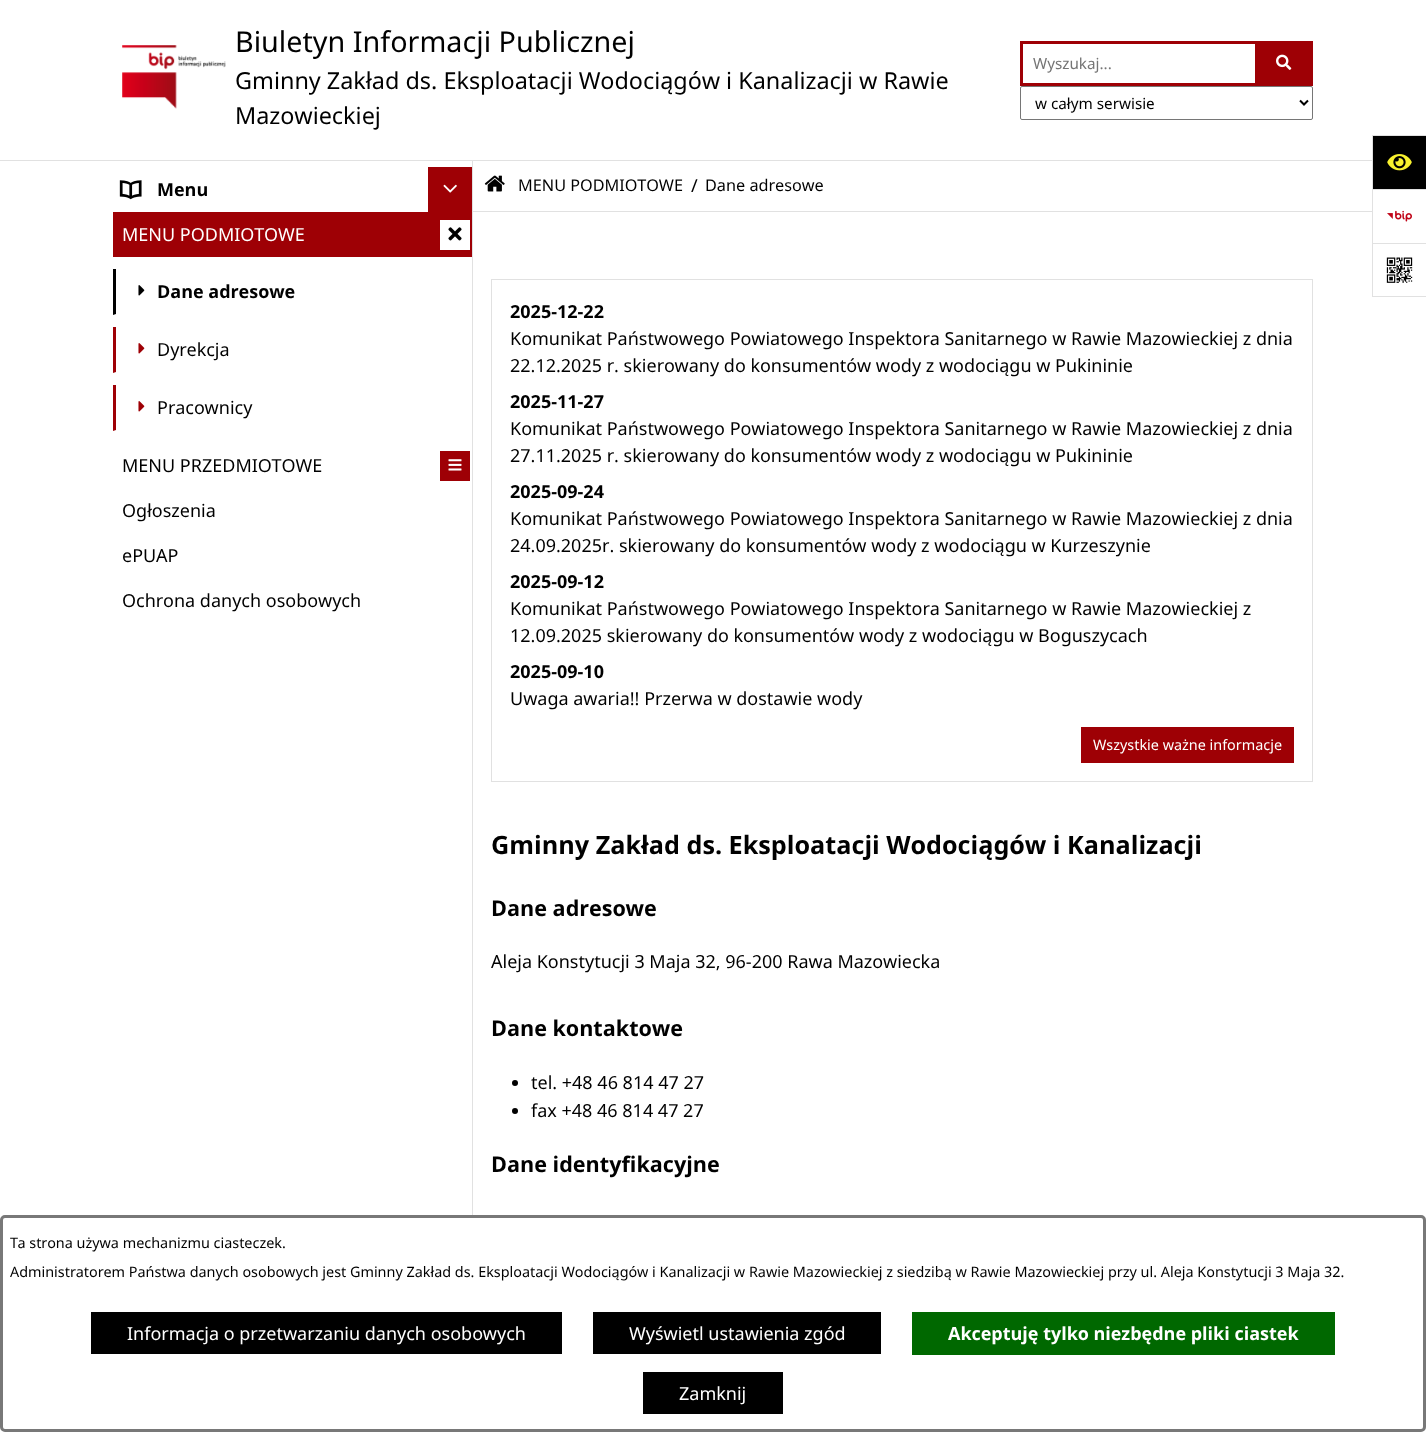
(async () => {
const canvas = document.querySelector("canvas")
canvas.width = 1426
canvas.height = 1432
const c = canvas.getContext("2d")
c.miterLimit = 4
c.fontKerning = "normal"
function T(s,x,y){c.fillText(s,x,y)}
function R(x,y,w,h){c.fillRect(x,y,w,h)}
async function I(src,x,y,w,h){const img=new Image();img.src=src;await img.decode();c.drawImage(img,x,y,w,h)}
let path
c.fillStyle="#fff"
R(0,0,1426,1432)
c.fillStyle="#e1e1e1"
R(472,160,1,1055)
R(0,160,1372,1)
await I("1.png",122,45,104,64)
c.font="28.75px Noto Sans"
c.fillStyle="#000"
T("Biuletyn Informacji Publicznej",235,52)
c.font="23.4px Noto Sans"
T("Gminny Zakład ds. Eksploatacji Wodociągów i Kanalizacji w Rawie",235,89)
T("Mazowieckiej",235,124)
c.strokeStyle="#9e0005"
c.lineWidth=3
c.strokeRect(1021.5,42.5,235,42)
c.font="15.25px Noto Sans"
c.fillStyle="#757575"
T("Wyszukaj...",1033,69)
c.fillStyle="#9e0005"
R(1258,41,55,45)
await I("2.png",1276,54,16,16)
c.beginPath()
c.roundRect(1020.5,86.5,292,33,1.5)
c.strokeStyle="#767676"
c.lineWidth=1
c.stroke()
path = new Path2D("M1300 100.5l4 4l4-4")
c.strokeStyle="#000"
c.lineWidth=2
c.stroke(path)
c.fillStyle="#000"
T("w całym serwisie",1035,109)
await I("3.png",119,180,23,20)
c.font="bold 18px Noto Sans"
T("Menu",157,196)
c.fillStyle="#9e0005"
R(428,167,44,45)
await I("4.png",443,184,14,9)
R(113,212,359,45)
c.font="18px Noto Sans"
c.fillStyle="#fff"
T("MENU PODMIOTOWE",122,241)
R(440,220,30,30)
await I("5.png",448,227,14,14)
c.fillStyle="#000"
path = new Path2D("M113 315v-46h3v45z")
c.fill(path)
await I("6.png",138,285,7,11)
c.font="bold 18px Noto Sans"
T("Dane adresowe",157,298)
c.fillStyle="#9e0005"
path = new Path2D("M113 373v-46h3v45z")
c.fill(path)
await I("7.png",138,343,7,11)
c.font="18px Noto Sans"
c.fillStyle="#000"
T("Dyrekcja",157,356)
c.fillStyle="#9e0005"
path = new Path2D("M113 431v-46h3v45z")
c.fill(path)
await I("7.png",138,401,7,11)
c.fillStyle="#000"
T("Pracownicy",157,414)
T("MENU PRZEDMIOTOWE",122,472)
c.fillStyle="#9e0005"
R(440,451,30,30)
await I("8.png",448,459,14,12)
c.fillStyle="#000"
T("Ogłoszenia",122,517)
T("ePUAP",122,562)
T("Ochrona danych osobowych",122,607)
R(1373,136,53,53)
c.fillStyle="#e1e1e1"
R(1372,135,54,1)
R(1372,135,1,54)
await I("9.png",1387,154,25,17)
R(1372,189,54,1)
R(1372,189,1,54)
await I("10.png",1387,210,25,12)
R(1372,243,54,1)
R(1372,296,54,1)
R(1372,243,1,54)
await I("11.png",1386,257,27,26)
R(473,211,899,1)
await I("12.png",484,175,21,17)
c.font="16.25px Noto Sans"
c.fillStyle="#000"
T("MENU PODMIOTOWE",518,191)
c.font="18px Noto Sans"
T("/",691,192)
c.font="16.25px Noto Sans"
T("Dane adresowe",705,191)
c.strokeStyle="#e1e1e1"
c.lineWidth=1
c.strokeRect(491.5,279.5,821,502)
c.font="bold 18px Noto Sans"
T("2025-12-22",510,318)
c.font="18px Noto Sans"
T("Komunikat Państwowego Powiatowego Inspektora Sanitarnego w Rawie Mazowieckiej z dnia",510,345)
T("22.12.2025 r. skierowany do konsumentów wody z wodociągu w Pukininie",510,372)
c.font="bold 18px Noto Sans"
T("2025-11-27",510,408)
c.font="18px Noto Sans"
T("Komunikat Państwowego Powiatowego Inspektora Sanitarnego w Rawie Mazowieckiej z dnia",510,435)
T("27.11.2025 r. skierowany do konsumentów wody z wodociągu w Pukininie",510,462)
c.font="bold 18px Noto Sans"
T("2025-09-24",510,498)
c.font="18px Noto Sans"
T("Komunikat Państwowego Powiatowego Inspektora Sanitarnego w Rawie Mazowieckiej z dnia",510,525)
T("24.09.2025r. skierowany do konsumentów wody z wodociągu w Kurzeszynie",510,552)
c.font="bold 18px Noto Sans"
T("2025-09-12",510,588)
c.font="18px Noto Sans"
T("Komunikat Państwowego Powiatowego Inspektora Sanitarnego w Rawie Mazowieckiej z",510,615)
T("12.09.2025 skierowany do konsumentów wody z wodociągu w Boguszycach",510,642)
c.font="bold 18px Noto Sans"
T("2025-09-10",510,678)
c.font="18px Noto Sans"
T("Uwaga awaria!! Przerwa w dostawie wody",510,705)
c.fillStyle="#9e0005"
R(1081,727,213,36)
c.font="14.4px Noto Sans"
c.fillStyle="#fff"
T("Wszystkie ważne informacje",1093,750)
c.font="bold 25.2px Noto Sans"
c.fillStyle="#000"
T("Gminny Zakład ds. Eksploatacji Wodociągów i Kanalizacji",491,854)
c.font="bold 21.6px Noto Sans"
T("Dane adresowe",491,916)
c.font="18px Noto Sans"
T("Aleja Konstytucji 3 Maja 32, 96-200 Rawa Mazowiecka",491,968)
c.font="bold 21.6px Noto Sans"
T("Dane kontaktowe",491,1036)
c.beginPath()
c.arc(515,1083,3,0,7)
c.fill()
c.font="18px Noto Sans"
T("tel. +48 46 814 47 27",531,1089)
c.beginPath()
c.arc(515,1111,3,0,7)
c.fill()
T("fax +48 46 814 47 27",531,1117)
c.font="bold 21.6px Noto Sans"
T("Dane identyfikacyjne",491,1172)
c.beginPath()
c.roundRect(1.5,1216.5,1423,214,3.5)
c.strokeStyle="#787878"
c.lineWidth=3
c.stroke()
c.font="14.4px Noto Sans"
T("Ta strona używa mechanizmu ciasteczek.",10,1248)
T("Administratorem Państwa danych osobowych jest Gminny Zakład ds. Eksploatacji Wodociągów i Kanalizacji w Rawie Mazowieckiej z siedzibą w Rawie Mazowieckiej przy ul. Aleja Konstytucji 3 Maja 32.",10,1277)
R(91,1312,471,42)
c.font="18px Noto Sans"
c.fillStyle="#fff"
T("Informacja o przetwarzaniu danych osobowych",127,1340)
c.fillStyle="#000"
R(593,1312,288,42)
c.fillStyle="#fff"
T("Wyświetl ustawienia zgód",629,1340)
c.fillStyle="#006800"
R(912,1312,423,43)
c.font="bold 18px Noto Sans"
c.fillStyle="#fff"
T("Akceptuję tylko niezbędne pliki ciastek",948,1340)
c.fillStyle="#000"
R(643,1372,140,42)
c.font="18px Noto Sans"
c.fillStyle="#fff"
T("Zamknij",679,1400)
})()
